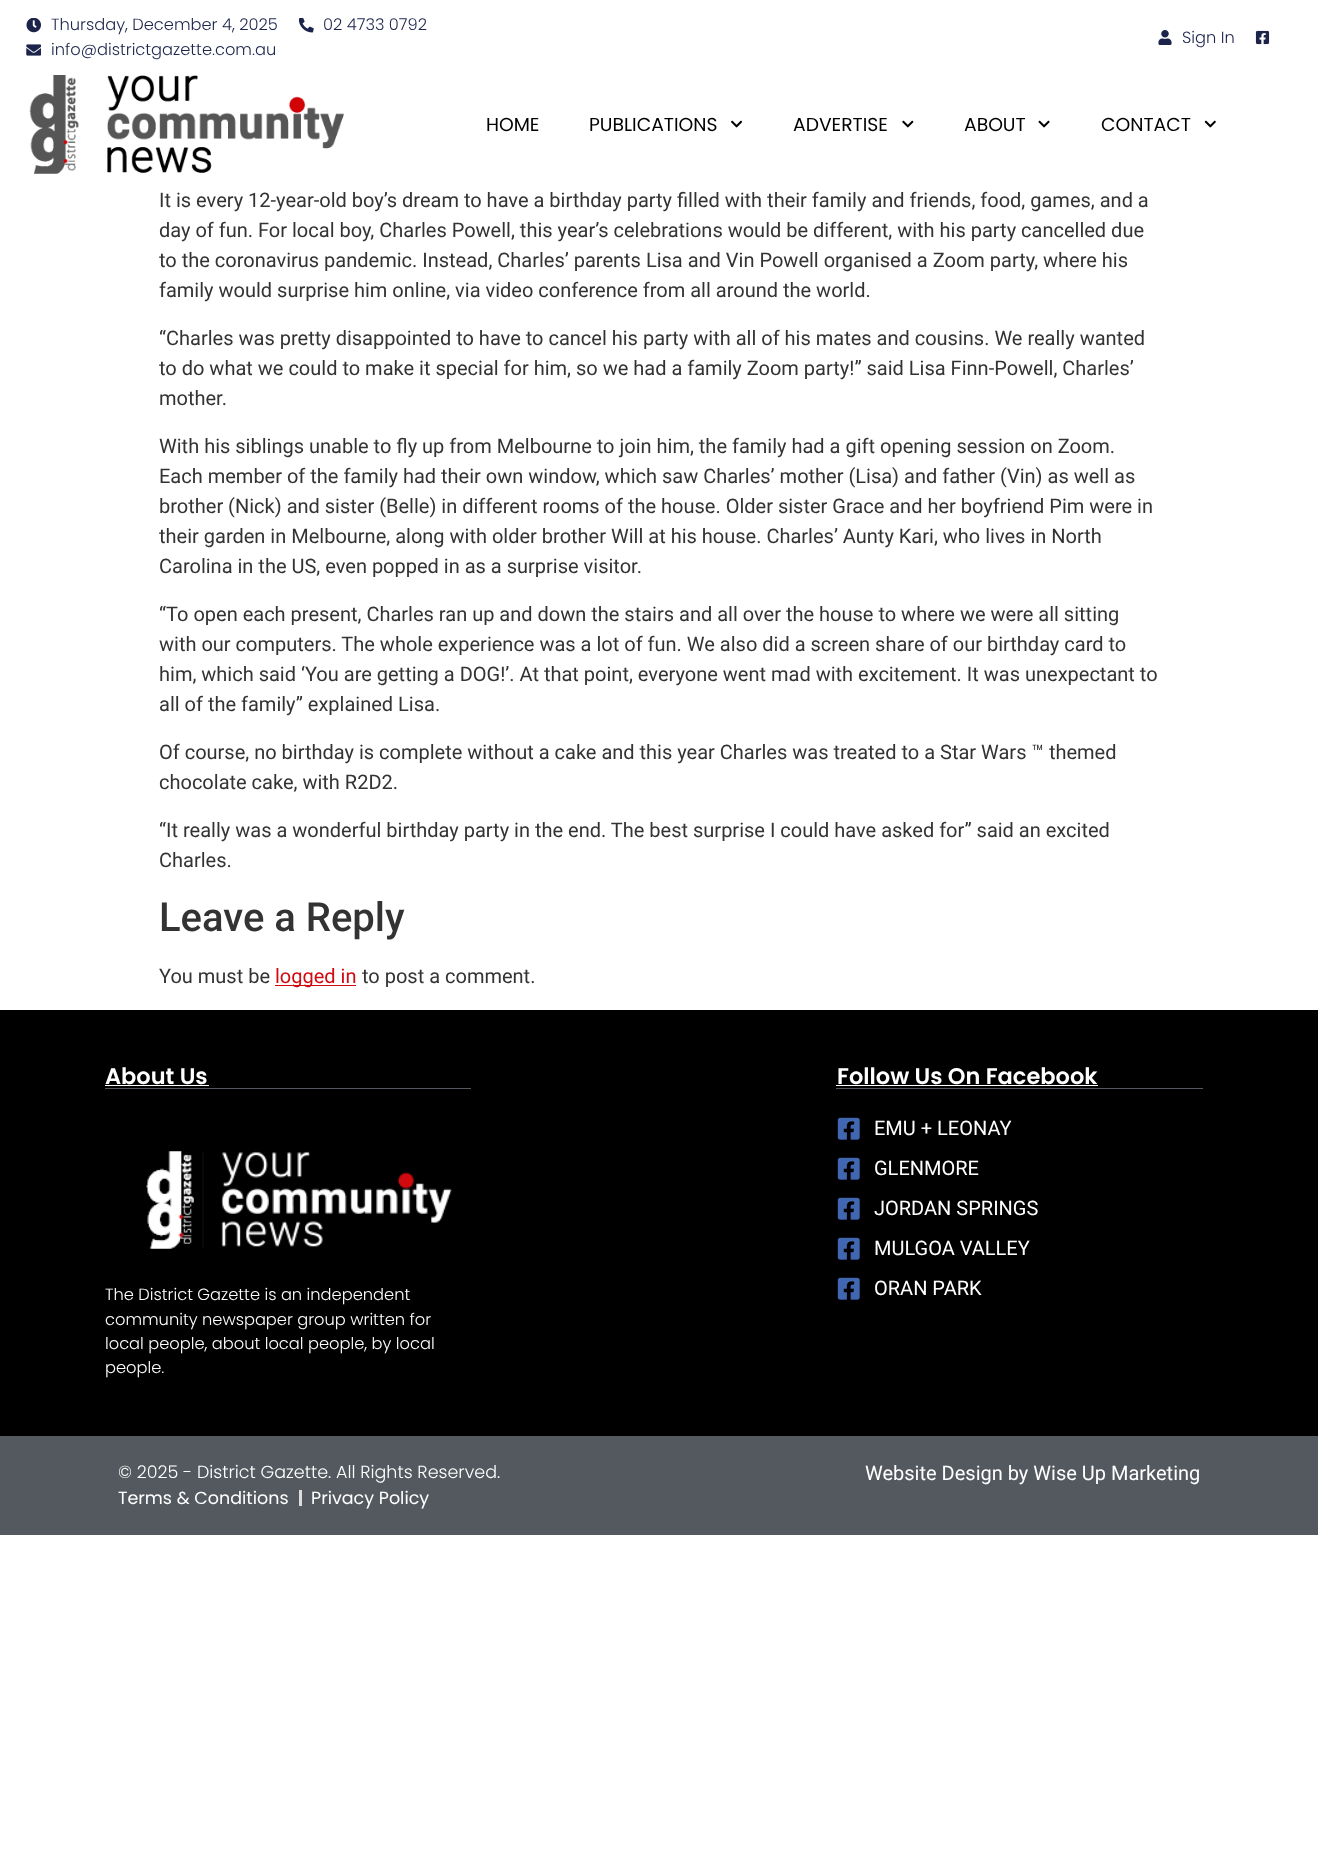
(async () => {
const canvas = document.querySelector("canvas")
canvas.width = 1318
canvas.height = 1852
const c = canvas.getContext("2d")
c.miterLimit = 4
c.fontKerning = "normal"
function T(s,x,y){c.fillText(s,x,y)}
function R(x,y,w,h){c.fillRect(x,y,w,h)}
async function I(src,x,y,w,h){const img=new Image();img.src=src;await img.decode();c.drawImage(img,x,y,w,h)}
c.fillStyle="#fff"
R(0,0,1318,1852)
await I("1.png",26,18,15,15)
c.font="300 16.25px Poppins"
c.fillStyle="#1c244b"
T("Thursday, December 4, 2025",51,30)
await I("2.png",299,18,15,15)
T("02 4733 0792",323,30)
await I("3.png",26,44,15,12)
T("info@districtgazette.com.au",51,55)
await I("4.png",1158,30,14,15)
T("Sign In",1182,43)
await I("5.png",1255,30,15,15)
await I("6.png",29,75,315,99)
c.font="18.75px Poppins"
c.fillStyle="#000"
T("HOME",486,131)
T("PUBLICATIONS",589,131)
await I("7.png",731,120,12,8)
T("ADVERTISE",793,131)
await I("8.png",902,120,12,8)
T("ABOUT",964,131)
await I("9.png",1038,120,12,8)
T("CONTACT",1101,131)
await I("10.png",1204,120,12,8)
c.font="20px Roboto"
c.fillStyle="#333"
T("It is every 12-year-old boy’s dream to have a birthday party filled with their family and friends, food, games, and a",159,207)
T("day of fun. For local boy, Charles Powell, this year’s celebrations would be different, with his party cancelled due",159,237)
T("to the coronavirus pandemic. Instead, Charles’ parents Lisa and Vin Powell organised a Zoom party, where his",159,267)
T("family would surprise him online, via video conference from all around the world.",159,297)
T("“Charles was pretty disappointed to have to cancel his party with all of his mates and cousins. We really wanted",159,345)
T("to do what we could to make it special for him, so we had a family Zoom party!” said Lisa Finn-Powell, Charles’",159,375)
T("mother.",159,405)
T("With his siblings unable to fly up from Melbourne to join him, the family had a gift opening session on Zoom.",159,453)
T("Each member of the family had their own window, which saw Charles’ mother (Lisa) and father (Vin) as well as",159,483)
T("brother (Nick) and sister (Belle) in different rooms of the house. Older sister Grace and her boyfriend Pim were in",159,513)
T("their garden in Melbourne, along with older brother Will at his house. Charles’ Aunty Kari, who lives in North",159,543)
T("Carolina in the US, even popped in as a surprise visitor.",159,573)
T("“To open each present, Charles ran up and down the stairs and all over the house to where we were all sitting",159,621)
T("with our computers. The whole experience was a lot of fun. We also did a screen share of our birthday card to",159,651)
T("him, which said ‘You are getting a DOG!’. At that point, everyone went mad with excitement. It was unexpectant to",159,681)
T("all of the family” explained Lisa.",159,711)
T("Of course, no birthday is complete without a cake and this year Charles was treated to a Star Wars ™ themed",159,759)
T("chocolate cake, with R2D2.",159,789)
T("“It really was a wonderful birthday party in the end. The best surprise I could have asked for” said an excited",159,837)
T("Charles.",159,867)
c.font="500 40px Roboto"
T("Leave a Reply",159,931)
c.font="20px Roboto"
T("You must be",159,983)
c.fillStyle="#d10a10"
R(275,985,81,1)
T("logged in",275,983)
c.fillStyle="#333"
T("to post a comment.",362,983)
c.fillStyle="#000"
R(0,1010,1318,426)
c.fillStyle="#54595f"
R(105,1088,366,1)
c.font="600 22.5px Poppins"
c.fillStyle="#fff"
T("About Us",105,1084)
R(105,1085,104,1)
await I("11.png",146,1151,306,98)
c.font="300 16.25px Poppins"
T("The District Gazette is an independent",105,1300)
T("community newspaper group written for",105,1325)
T("local people, about local people, by local",105,1349)
T("people.",105,1373)
c.fillStyle="#54595f"
R(836,1088,367,1)
c.font="600 22.5px Poppins"
c.fillStyle="#fff"
T("Follow Us On Facebook",837,1084)
R(836,1085,262,1)
await I("12.png",837,1117,23,23)
c.font="20px Roboto"
T("EMU + LEONAY",874,1135)
await I("12.png",837,1157,23,23)
T("GLENMORE",874,1175)
await I("12.png",837,1197,23,23)
T("JORDAN SPRINGS",874,1215)
await I("12.png",837,1237,23,23)
T("MULGOA VALLEY",874,1255)
await I("12.png",837,1277,23,23)
T("ORAN PARK",874,1295)
c.fillStyle="#54595f"
R(0,1436,1318,99)
c.font="300 17.5px Poppins"
c.fillStyle="#fff"
T("© 2025 - District Gazette. All Rights Reserved.",118,1478)
c.font="17.5px Poppins"
T("Terms & Conditions",118,1504)
c.fillStyle="#ddd"
R(299,1490,3,16)
c.fillStyle="#fff"
T("Privacy Policy",311,1504)
c.font="20px Roboto"
T("Website Design by Wise Up Marketing",865,1480)
})()
